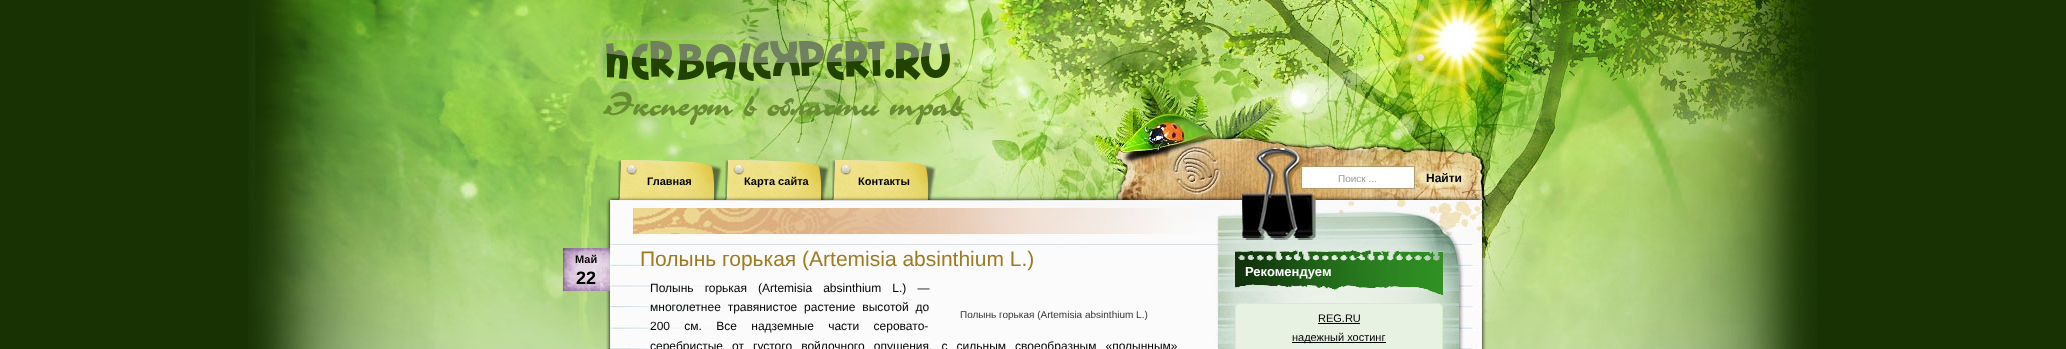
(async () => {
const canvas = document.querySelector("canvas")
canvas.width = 2066
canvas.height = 349
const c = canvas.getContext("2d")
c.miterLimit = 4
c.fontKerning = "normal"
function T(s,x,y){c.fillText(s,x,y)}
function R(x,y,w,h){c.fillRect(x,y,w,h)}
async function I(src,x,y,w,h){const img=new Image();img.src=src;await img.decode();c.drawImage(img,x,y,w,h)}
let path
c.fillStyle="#183203"
R(0,0,2066,349)
await I("1.png",248,0,1569,349)
await I("2.png",543,0,980,200)
c.save()
path = new Path2D("M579 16h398v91h-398zm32 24h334c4.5 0 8 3.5 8 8v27c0 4.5-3.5 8-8 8h-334c-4.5 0-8-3.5-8-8v-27c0-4.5 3.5-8 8-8z")
c.clip(path,"evenodd")
c.fillStyle="#c6c6c699"
c.filter="blur(7.5px)"
c.beginPath()
c.roundRect(603,40,350,43,8)
c.fill()
c.filter="none"
c.restore()
await I("3.png",605,41,345,40)
c.font="italic bold 32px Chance"
c.fillStyle="#698c32"
T("Эксперт в области трав",603,115)
await I("4.png",618,160,104,40)
c.font="bold 11px Liberation Sans"
c.fillStyle="#000"
T("Главная",647,185)
await I("5.png",725,160,104,40)
T("Карта сайта",744,185)
await I("6.png",832,160,104,40)
T("Контакты",858,185)
c.font="10px Liberation Sans"
c.fillStyle="#999"
T("Поиск ...",1338,182)
c.font="bold 12px Liberation Sans"
c.fillStyle="#000"
T("Найти",1426,182)
await I("7.png",543,200,980,149)
await I("8.png",563,248,47,43)
c.font="bold 11px Liberation Sans"
T("Май",575,263)
c.font="bold 18px Liberation Sans"
T("22",576,284)
c.font="21px Liberation Sans"
c.fillStyle="#9e7b22"
T("Полынь горькая (Artemisia absinthium L.)",640,266)
c.wordSpacing="7.75px"
c.font="12px Liberation Sans"
c.fillStyle="#000"
T("Полынь горькая (Artemisia absinthium L.) —",650,292)
c.wordSpacing="3.5px"
T("многолетнее травянистое растение высотой до",650,311)
c.wordSpacing="11px"
T("200 см. Все надземные части серовато-",650,330)
c.wordSpacing="5.75px"
T("серебристые от густого войлочного опушения, с сильным своеобразным «полынным»",650,350)
c.wordSpacing="0px"
c.font="10px Liberation Sans"
c.fillStyle="#333"
T("Полынь горькая (Artemisia absinthium L.)",960,318)
await I("9.png",1235,250,208,45)
c.font="bold 13px Liberation Sans"
c.fillStyle="#fff"
T("Рекомендуем",1245,276)
c.fillStyle="#e7f2e2"
c.beginPath()
c.roundRect(1235.5,303.5,207,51,4.5)
c.fill()
c.strokeStyle="#d2f0c5"
c.stroke()
c.font="11px Liberation Sans"
c.fillStyle="#000"
T("REG.RU",1318,322)
R(1318,323,42,1)
R(1292,342,94,1)
T("надежный хостинг",1292,341)
})()
